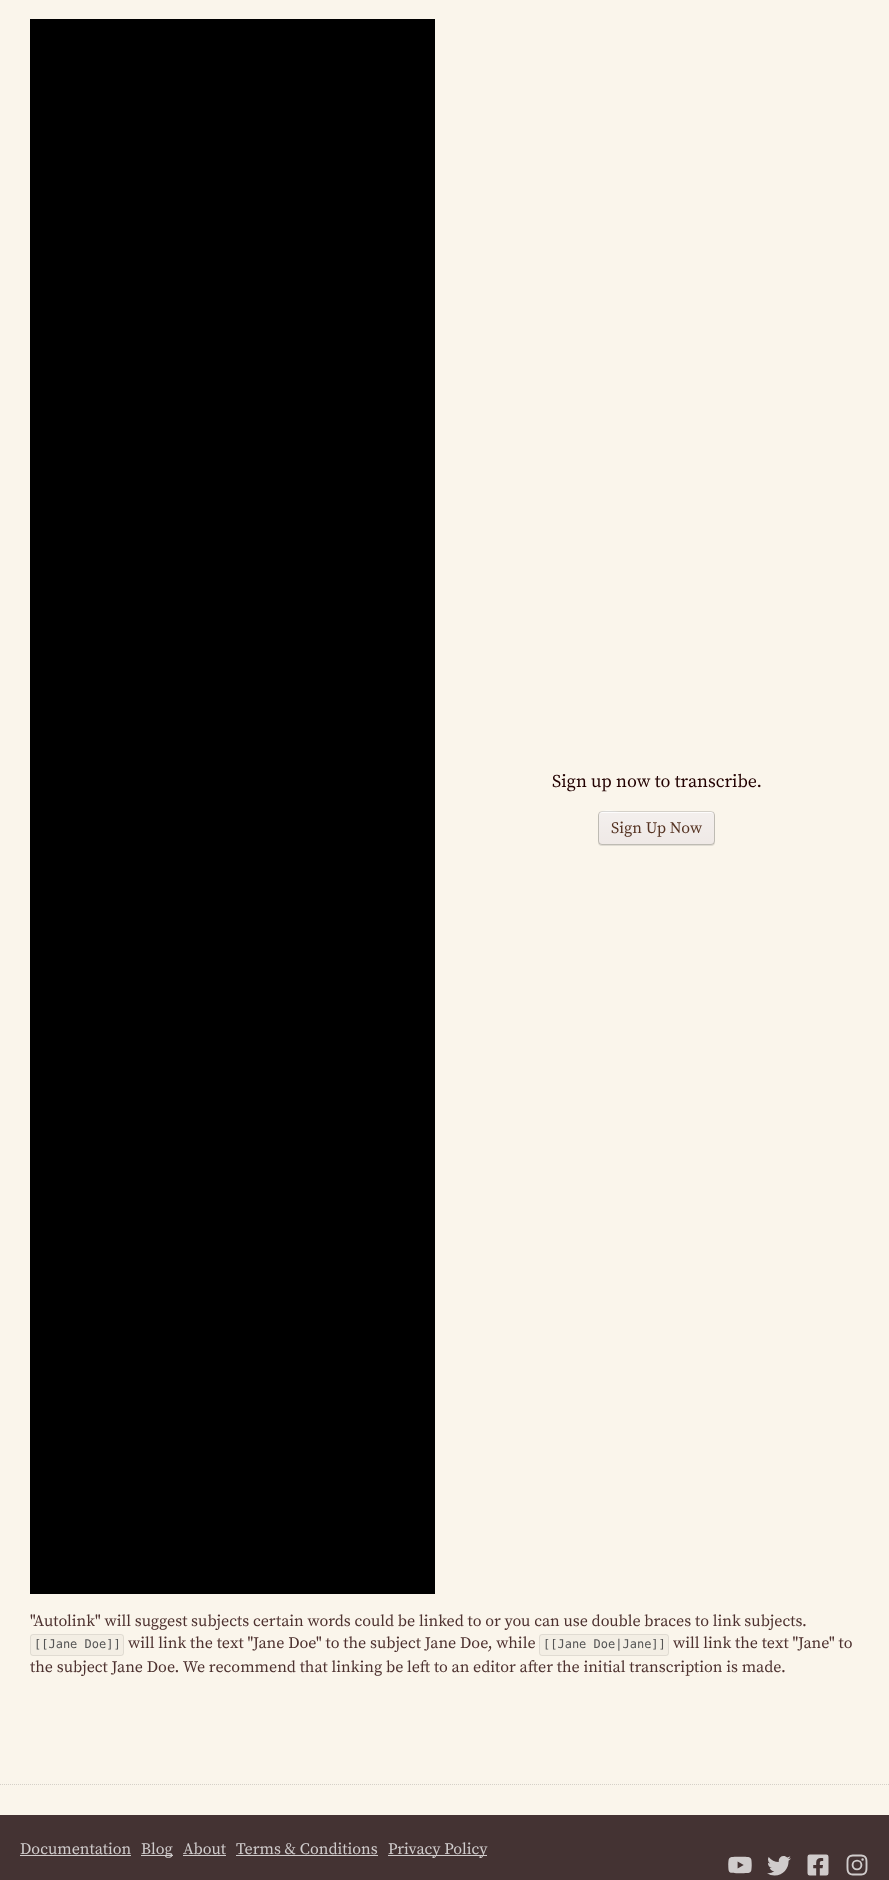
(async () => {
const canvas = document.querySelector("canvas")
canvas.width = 889
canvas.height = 1880
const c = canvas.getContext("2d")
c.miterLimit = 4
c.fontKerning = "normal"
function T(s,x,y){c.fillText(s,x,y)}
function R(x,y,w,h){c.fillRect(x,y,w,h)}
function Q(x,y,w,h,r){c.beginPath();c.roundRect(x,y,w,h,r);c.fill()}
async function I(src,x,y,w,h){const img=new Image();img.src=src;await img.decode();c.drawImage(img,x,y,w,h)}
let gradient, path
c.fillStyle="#faf5eb"
R(0,0,889,1880)
c.fillStyle="#000"
R(30,19,405,1575)
c.font="18px Source Serif Pro"
c.fillStyle="#200"
T("Sign up now to transcribe.",552,787)
c.fillStyle="#0000001a"
c.filter="blur(0.5px)"
c.beginPath()
c.roundRect(598,812,117,34,4)
c.fill()
c.filter="none"
c.fillStyle="#efe9e6"
Q(599,812,115,32,3)
gradient = c.createLinearGradient(657,812,657,844)
gradient.addColorStop(0,"#ffffff4d")
gradient.addColorStop(1,"#ffffff00")
c.fillStyle = gradient
Q(599,812,115,32,3)
c.fillStyle="#ffffffcc"
path = new Path2D("M602 813h109c2 0 3 1 3 3c0-2-1-4-3-4h-91c-1 0-21-5-21 4c0-2 1-3 3-3z")
c.fill(path)
c.beginPath()
c.roundRect(598.5,811.5,116,33,3.5)
c.strokeStyle="#00000026"
c.stroke()
c.font="16px Source Serif Pro"
c.fillStyle="#532"
T("Sign Up Now",611,833)
c.fillStyle="#4d312f"
T("\"Autolink\" will suggest subjects certain words could be linked to or you can use double braces to link subjects.",30,1626)
c.fillStyle="#f3eee4"
Q(30,1634,94,22,3)
c.beginPath()
c.roundRect(30.5,1634.5,93,21,2.5)
c.strokeStyle="#00000014"
c.stroke()
c.font="12px DejaVu Sans Mono"
c.fillStyle="#555"
T("[[Jane Doe]]",34,1648)
c.font="16px Source Serif Pro"
c.fillStyle="#4d312f"
T("will link the text \"Jane Doe\" to the subject Jane Doe, while",128,1648)
c.fillStyle="#f3eee4"
Q(539,1634,130,22,3)
c.beginPath()
c.roundRect(539.5,1634.5,129,21,2.5)
c.stroke()
c.font="12px DejaVu Sans Mono"
c.fillStyle="#555"
T("[[Jane Doe|Jane]]",543,1648)
c.font="16px Source Serif Pro"
c.fillStyle="#4d312f"
T("will link the text \"Jane\" to",673,1648)
T("the subject Jane Doe. We recommend that linking be left to an editor after the initial transcription is made.",30,1672)
path = new Path2D("M0 1784.5h889")
c.strokeStyle="#d5d0c8"
c.setLineDash([1,1])
c.stroke(path)
c.fillStyle="#433"
R(0,1815,889,65)
c.fillStyle="#d0cccc"
T("Documentation",20,1854)
R(20,1855,111,1)
R(141,1855,32,1)
T("Blog",141,1854)
T("About",183,1854)
R(183,1855,43,1)
T("Terms & Conditions",236,1854)
R(236,1855,142,1)
R(388,1855,99,1)
T("Privacy Policy",388,1854)
await I("1.png",728,1856,24,18)
await I("2.png",767,1856,24,20)
await I("3.png",807,1854,22,22)
await I("4.png",846,1854,22,22)
})()
